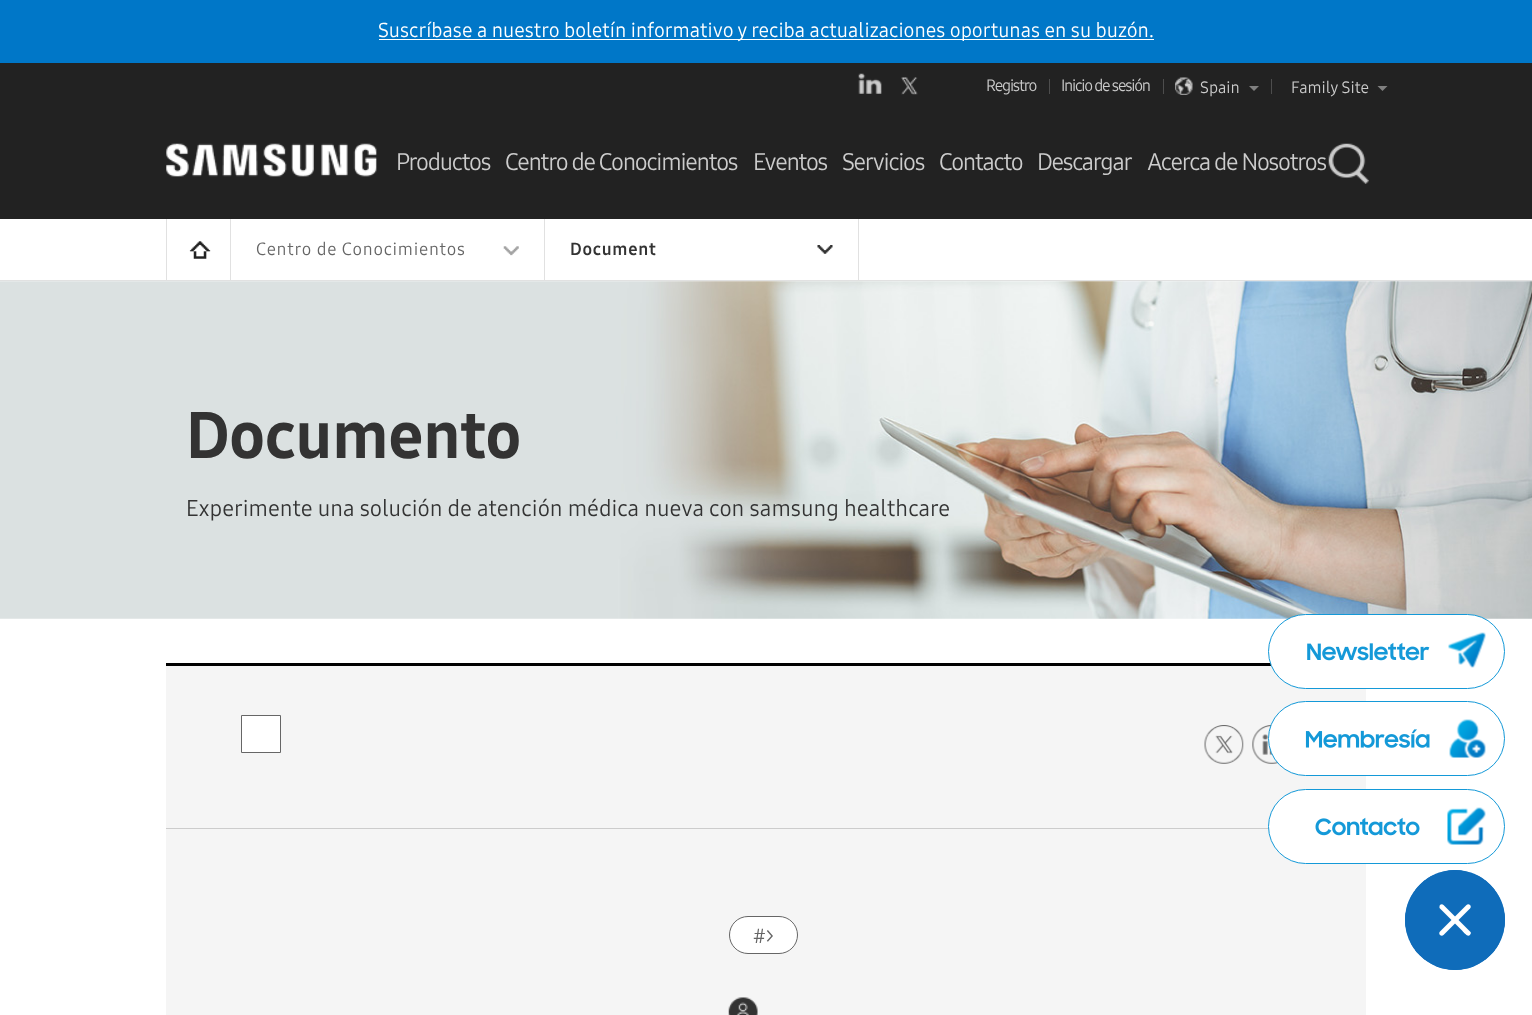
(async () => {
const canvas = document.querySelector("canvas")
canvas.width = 1532
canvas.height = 1015
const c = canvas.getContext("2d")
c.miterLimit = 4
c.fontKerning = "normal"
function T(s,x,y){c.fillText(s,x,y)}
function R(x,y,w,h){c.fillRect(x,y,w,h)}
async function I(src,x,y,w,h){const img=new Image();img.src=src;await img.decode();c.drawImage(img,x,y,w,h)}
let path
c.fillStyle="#fff"
R(0,0,1532,1015)
c.fillStyle="#222"
R(0,63,1532,156)
c.fillStyle="#0077c8"
R(0,0,1532,63)
c.fillStyle="#fff"
R(379,39,775,1)
c.font="20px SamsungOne"
T("Suscríbase a nuestro boletín informativo y reciba actualizaciones oportunas en su buzón.",378,37)
await I("1.png",858,73,24,21)
await I("2.png",901,77,17,18)
c.letterSpacing="-1.25px"
c.font="16.25px SamsungOne"
c.fillStyle="#ccc"
T("Registro",986,91)
c.fillStyle="#4d4d4d"
R(1049,79,1,15)
c.fillStyle="#ccc"
T("Inicio de sesión",1061,91)
c.fillStyle="#4d4d4d"
R(1163,79,1,15)
await I("3.png",1175,77,18,18)
c.letterSpacing="0px"
c.fillStyle="#ccc"
T("Spain",1200,93)
c.fillStyle="#808080"
path = new Path2D("M1249 86h10l-5 5z")
c.fill(path)
c.fillStyle="#4d4d4d"
R(1271,79,1,15)
c.fillStyle="#ccc"
T("Family Site",1291,93)
c.fillStyle="#808080"
path = new Path2D("M1377.5 86h10l-5 5z")
c.fill(path)
await I("4.png",166,143,211,34)
c.letterSpacing="-1.25px"
c.font="23.75px SamsungOne"
c.fillStyle="#ccc"
T("Productos",396,170)
T("Centro de Conocimientos",505,170)
T("Eventos",753,170)
T("Servicios",842,170)
T("Contacto",939,170)
T("Descargar",1037,170)
T("Acerca de Nosotros",1147,170)
await I("5.png",1328,143,41,41)
c.fillStyle="#e1e1e1"
R(0,280,1532,1)
R(230,219,1,61)
R(166,219,1,61)
await I("6.png",189,241,22,18)
R(544,219,1,61)
await I("7.png",503,246,16,10)
c.letterSpacing="0.75px"
c.font="17.5px SamsungOne"
c.fillStyle="#666"
T("Centro de Conocimientos",256,255)
c.fillStyle="#e1e1e1"
R(858,219,1,61)
await I("8.png",817,245,16,9)
c.font="bold 17.5px SamsungOne"
c.fillStyle="#333"
T("Document",570,255)
await I("9.png",0,281,1532,338)
c.letterSpacing="0px"
c.font="800 65px SamsungOne"
T("Documento",186,458)
c.font="22.5px SamsungOne"
T("Experimente una solución de atención médica nueva con samsung healthcare",186,516)
c.fillStyle="#f5f5f5"
R(166,666,1200,349)
c.fillStyle="#000"
R(166,663,1105,3)
c.fillStyle="#ccc"
R(166,828,1103,1)
c.fillStyle="#fff"
c.beginPath()
c.rect(241.5,715.5,39,37)
c.fill()
c.strokeStyle="#666"
c.stroke()
await I("10.png",1204,725,40,39)
await I("11.png",1252,725,26,39)
c.beginPath()
c.roundRect(729.5,916.5,68,37,18.5)
c.fill()
c.stroke()
c.font="20px SamsungOne"
c.fillStyle="#666"
T("#>",753,943)
await I("12.png",728,997,30,18)
c.fillStyle="#fff"
c.beginPath()
c.roundRect(1268.5,614.5,236,74,37)
c.fill()
c.strokeStyle="#1499d8"
c.stroke()
await I("13.png",1307,642,123,19)
await I("14.png",1448,632,38,36)
c.beginPath()
c.roundRect(1268.5,701.5,236,74,37)
c.fill()
c.stroke()
await I("15.png",1305,729,125,19)
await I("16.png",1449,719,37,39)
c.beginPath()
c.roundRect(1268.5,789.5,236,74,37)
c.fill()
c.stroke()
await I("17.png",1315,817,105,19)
await I("18.png",1447,807,39,38)
c.fillStyle="#0f6cba"
c.beginPath()
c.arc(1455,920,50,0,7)
c.fill()
await I("19.png",1405,870,100,100)
c.fillStyle="#fff"
path = new Path2D("M1443.5 905l27 27c.5 .5 .5 1.5 0 2c-2 5-8-3-8.5-3.5l-22.5-22.5v-1.5c0-2 2.5-3 4-1.5z")
c.fill(path)
path = new Path2D("M1470 905c1 1 1 2.5 0 3.5l-26.5 26.5c-1 1-2.5 1-3.5 0c-1-1-1-2.5 0-3.5l26.5-26.5c1-1 2.5-1 3.5 0z")
c.fill(path)
})()
